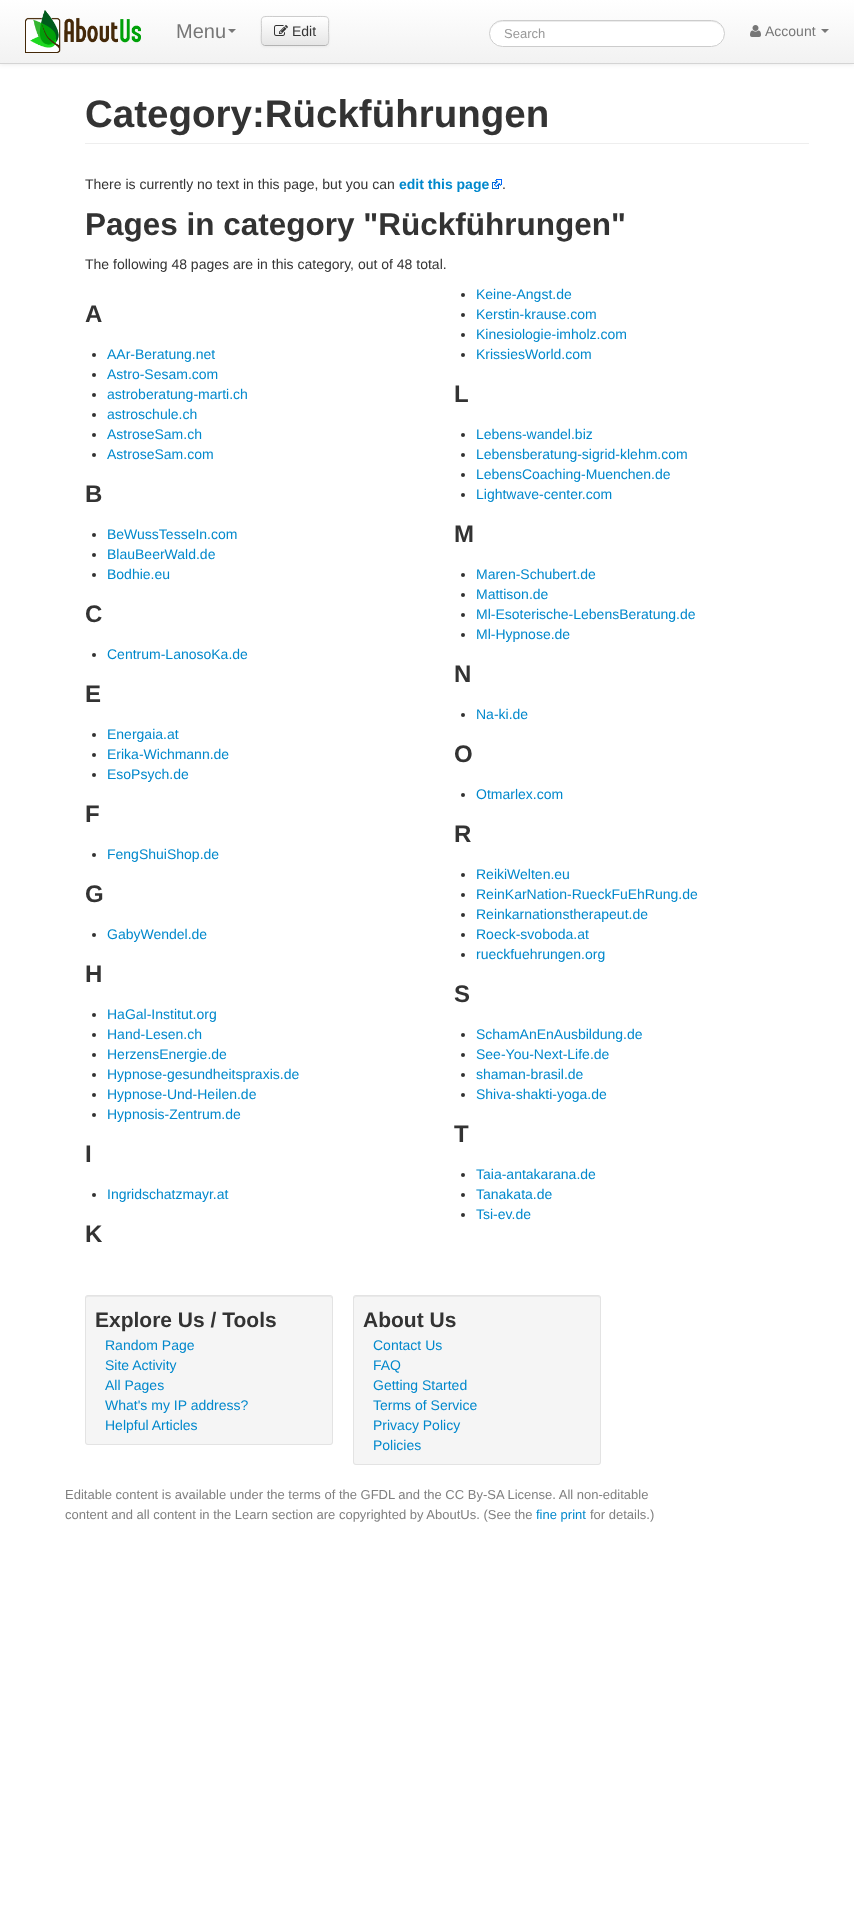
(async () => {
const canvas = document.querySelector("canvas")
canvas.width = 854
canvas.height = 1928
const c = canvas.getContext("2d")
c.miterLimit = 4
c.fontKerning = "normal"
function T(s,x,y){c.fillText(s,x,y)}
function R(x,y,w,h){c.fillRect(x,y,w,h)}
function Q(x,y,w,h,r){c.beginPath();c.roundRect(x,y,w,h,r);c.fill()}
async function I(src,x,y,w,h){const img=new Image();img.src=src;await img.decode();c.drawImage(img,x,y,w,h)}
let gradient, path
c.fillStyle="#fff"
R(0,0,854,1928)
c.fillStyle="#00000012"
c.filter="blur(2px)"
c.beginPath()
c.rect(0,1,854,64)
c.fill()
c.filter="none"
gradient = c.createLinearGradient(427,0,427,63)
gradient.addColorStop(0,"#fff")
gradient.addColorStop(1,"#f2f2f2")
c.fillStyle = gradient
R(0,0,854,63)
c.fillStyle="#d4d4d4"
R(0,63,854,1)
await I("1.png",25,10,116,43)
c.font="20px Liberation Sans"
c.fillStyle="#777"
T("Menu",176,38)
path = new Path2D("M228 29h8l-4 4z")
c.fill(path)
c.fillStyle="#0000000d"
c.filter="blur(1px)"
c.beginPath()
c.roundRect(261,17,68,30,4)
c.fill()
c.filter="none"
c.fillStyle="#f5f5f5"
Q(261,16,68,30,4)
c.save()
c.beginPath()
c.roundRect(261,16,68,30,4)
c.clip()
gradient = c.createLinearGradient(295,17,295,45)
gradient.addColorStop(0,"#fff")
gradient.addColorStop(1,"#e6e6e6")
c.fillStyle = gradient
R(261,17,68,28)
c.restore()
path = new Path2D("M327.5 44.5l-2 1h-61l-2-1")
c.strokeStyle="#b3b3b3"
c.stroke(path)
path = new Path2D("M262.5 44.5c-2-2-1-10.5-1-13.5c0-16-2.5-14.5 13.5-14.5h40c16 0 13.5-1.5 13.5 14.5c0 3 1 11.5-1 13.5")
c.strokeStyle="#ccc"
c.stroke(path)
await I("2.png",274,25,14,11)
c.font="14px Liberation Sans"
c.fillStyle="#333"
T("Edit",292,36)
c.fillStyle="#fff"
Q(489,20,236,27,13.5)
c.fillStyle="#ececec"
path = new Path2D("M502 22h210c6 0 12 6 12 12c0-7-6-13-12-13h-210c-6 0-12 6-12 13c0-6 6-12 12-12z")
c.fill(path)
c.beginPath()
c.roundRect(489.5,20.5,235,26,13)
c.stroke()
c.font="13px Liberation Sans"
c.fillStyle="#999"
T("Search",504,38)
await I("3.png",750,25,11,12)
c.font="14px Liberation Sans"
c.fillStyle="#777"
T("Account",765,36)
path = new Path2D("M821 29h8l-4 4z")
c.fill(path)
c.fillStyle="#eee"
R(85,143,724,1)
c.font="bold 38.5px Liberation Sans"
c.fillStyle="#333"
T("Category:Rückführungen",85,127)
c.font="14px Liberation Sans"
T("There is currently no text in this page, but you can",85,189)
c.font="bold 14px Liberation Sans"
c.fillStyle="#08c"
T("edit this page",399,189)
await I("4.png",492,179,10,10)
c.font="14px Liberation Sans"
c.fillStyle="#333"
T(".",502,189)
c.font="bold 31.5px Liberation Sans"
T("Pages in category \"Rückführungen\"",85,235)
c.font="14px Liberation Sans"
T("The following 48 pages are in this category, out of 48 total.",85,269)
c.beginPath()
c.arc(463,295,2,0,7)
c.fill()
c.fillStyle="#08c"
T("Keine-Angst.de",476,299)
c.fillStyle="#333"
c.beginPath()
c.arc(463,315,2,0,7)
c.fill()
c.fillStyle="#08c"
T("Kerstin-krause.com",476,319)
c.fillStyle="#333"
c.beginPath()
c.arc(463,335,2,0,7)
c.fill()
c.fillStyle="#08c"
T("Kinesiologie-imholz.com",476,339)
c.fillStyle="#333"
c.beginPath()
c.arc(463,355,2,0,7)
c.fill()
c.fillStyle="#08c"
T("KrissiesWorld.com",476,359)
c.font="bold 24px Liberation Sans"
c.fillStyle="#333"
T("K",85,1242)
T("A",85,322)
c.beginPath()
c.arc(94,355,2,0,7)
c.fill()
c.font="14px Liberation Sans"
c.fillStyle="#08c"
T("AAr-Beratung.net",107,359)
c.fillStyle="#333"
c.beginPath()
c.arc(94,375,2,0,7)
c.fill()
c.fillStyle="#08c"
T("Astro-Sesam.com",107,379)
c.fillStyle="#333"
c.beginPath()
c.arc(94,395,2,0,7)
c.fill()
c.fillStyle="#08c"
T("astroberatung-marti.ch",107,399)
c.fillStyle="#333"
c.beginPath()
c.arc(94,415,2,0,7)
c.fill()
c.fillStyle="#08c"
T("astroschule.ch",107,419)
c.fillStyle="#333"
c.beginPath()
c.arc(94,435,2,0,7)
c.fill()
c.fillStyle="#08c"
T("AstroseSam.ch",107,439)
c.fillStyle="#333"
c.beginPath()
c.arc(94,455,2,0,7)
c.fill()
c.fillStyle="#08c"
T("AstroseSam.com",107,459)
c.font="bold 24px Liberation Sans"
c.fillStyle="#333"
T("L",454,402)
c.beginPath()
c.arc(463,435,2,0,7)
c.fill()
c.font="14px Liberation Sans"
c.fillStyle="#08c"
T("Lebens-wandel.biz",476,439)
c.fillStyle="#333"
c.beginPath()
c.arc(463,455,2,0,7)
c.fill()
c.fillStyle="#08c"
T("Lebensberatung-sigrid-klehm.com",476,459)
c.fillStyle="#333"
c.beginPath()
c.arc(463,475,2,0,7)
c.fill()
c.fillStyle="#08c"
T("LebensCoaching-Muenchen.de",476,479)
c.fillStyle="#333"
c.beginPath()
c.arc(463,495,2,0,7)
c.fill()
c.fillStyle="#08c"
T("Lightwave-center.com",476,499)
c.font="bold 24px Liberation Sans"
c.fillStyle="#333"
T("B",85,502)
c.beginPath()
c.arc(94,535,2,0,7)
c.fill()
c.font="14px Liberation Sans"
c.fillStyle="#08c"
T("BeWussTesseIn.com",107,539)
c.fillStyle="#333"
c.beginPath()
c.arc(94,555,2,0,7)
c.fill()
c.fillStyle="#08c"
T("BlauBeerWald.de",107,559)
c.fillStyle="#333"
c.beginPath()
c.arc(94,575,2,0,7)
c.fill()
c.fillStyle="#08c"
T("Bodhie.eu",107,579)
c.font="bold 24px Liberation Sans"
c.fillStyle="#333"
T("M",454,542)
c.beginPath()
c.arc(463,575,2,0,7)
c.fill()
c.font="14px Liberation Sans"
c.fillStyle="#08c"
T("Maren-Schubert.de",476,579)
c.fillStyle="#333"
c.beginPath()
c.arc(463,595,2,0,7)
c.fill()
c.fillStyle="#08c"
T("Mattison.de",476,599)
c.fillStyle="#333"
c.beginPath()
c.arc(463,615,2,0,7)
c.fill()
c.fillStyle="#08c"
T("Ml-Esoterische-LebensBeratung.de",476,619)
c.fillStyle="#333"
c.beginPath()
c.arc(463,635,2,0,7)
c.fill()
c.fillStyle="#08c"
T("Ml-Hypnose.de",476,639)
c.font="bold 24px Liberation Sans"
c.fillStyle="#333"
T("C",85,622)
c.beginPath()
c.arc(94,655,2,0,7)
c.fill()
c.font="14px Liberation Sans"
c.fillStyle="#08c"
T("Centrum-LanosoKa.de",107,659)
c.font="bold 24px Liberation Sans"
c.fillStyle="#333"
T("E",85,702)
c.beginPath()
c.arc(94,735,2,0,7)
c.fill()
c.font="14px Liberation Sans"
c.fillStyle="#08c"
T("Energaia.at",107,739)
c.fillStyle="#333"
c.beginPath()
c.arc(94,755,2,0,7)
c.fill()
c.fillStyle="#08c"
T("Erika-Wichmann.de",107,759)
c.fillStyle="#333"
c.beginPath()
c.arc(94,775,2,0,7)
c.fill()
c.fillStyle="#08c"
T("EsoPsych.de",107,779)
c.font="bold 24px Liberation Sans"
c.fillStyle="#333"
T("N",454,682)
c.beginPath()
c.arc(463,715,2,0,7)
c.fill()
c.font="14px Liberation Sans"
c.fillStyle="#08c"
T("Na-ki.de",476,719)
c.font="bold 24px Liberation Sans"
c.fillStyle="#333"
T("O",454,762)
c.beginPath()
c.arc(463,795,2,0,7)
c.fill()
c.font="14px Liberation Sans"
c.fillStyle="#08c"
T("Otmarlex.com",476,799)
c.font="bold 24px Liberation Sans"
c.fillStyle="#333"
T("F",85,822)
c.beginPath()
c.arc(94,855,2,0,7)
c.fill()
c.font="14px Liberation Sans"
c.fillStyle="#08c"
T("FengShuiShop.de",107,859)
c.font="bold 24px Liberation Sans"
c.fillStyle="#333"
T("R",454,842)
c.beginPath()
c.arc(463,875,2,0,7)
c.fill()
c.font="14px Liberation Sans"
c.fillStyle="#08c"
T("ReikiWelten.eu",476,879)
c.fillStyle="#333"
c.beginPath()
c.arc(463,895,2,0,7)
c.fill()
c.fillStyle="#08c"
T("ReinKarNation-RueckFuEhRung.de",476,899)
c.fillStyle="#333"
c.beginPath()
c.arc(463,915,2,0,7)
c.fill()
c.fillStyle="#08c"
T("Reinkarnationstherapeut.de",476,919)
c.fillStyle="#333"
c.beginPath()
c.arc(463,935,2,0,7)
c.fill()
c.fillStyle="#08c"
T("Roeck-svoboda.at",476,939)
c.fillStyle="#333"
c.beginPath()
c.arc(463,955,2,0,7)
c.fill()
c.fillStyle="#08c"
T("rueckfuehrungen.org",476,959)
c.font="bold 24px Liberation Sans"
c.fillStyle="#333"
T("G",85,902)
c.beginPath()
c.arc(94,935,2,0,7)
c.fill()
c.font="14px Liberation Sans"
c.fillStyle="#08c"
T("GabyWendel.de",107,939)
c.font="bold 24px Liberation Sans"
c.fillStyle="#333"
T("H",85,982)
c.beginPath()
c.arc(94,1015,2,0,7)
c.fill()
c.font="14px Liberation Sans"
c.fillStyle="#08c"
T("HaGal-Institut.org",107,1019)
c.fillStyle="#333"
c.beginPath()
c.arc(94,1035,2,0,7)
c.fill()
c.fillStyle="#08c"
T("Hand-Lesen.ch",107,1039)
c.fillStyle="#333"
c.beginPath()
c.arc(94,1055,2,0,7)
c.fill()
c.fillStyle="#08c"
T("HerzensEnergie.de",107,1059)
c.fillStyle="#333"
c.beginPath()
c.arc(94,1075,2,0,7)
c.fill()
c.fillStyle="#08c"
T("Hypnose-gesundheitspraxis.de",107,1079)
c.fillStyle="#333"
c.beginPath()
c.arc(94,1095,2,0,7)
c.fill()
c.fillStyle="#08c"
T("Hypnose-Und-Heilen.de",107,1099)
c.fillStyle="#333"
c.beginPath()
c.arc(94,1115,2,0,7)
c.fill()
c.fillStyle="#08c"
T("Hypnosis-Zentrum.de",107,1119)
c.font="bold 24px Liberation Sans"
c.fillStyle="#333"
T("S",454,1002)
c.beginPath()
c.arc(463,1035,2,0,7)
c.fill()
c.font="14px Liberation Sans"
c.fillStyle="#08c"
T("SchamAnEnAusbildung.de",476,1039)
c.fillStyle="#333"
c.beginPath()
c.arc(463,1055,2,0,7)
c.fill()
c.fillStyle="#08c"
T("See-You-Next-Life.de",476,1059)
c.fillStyle="#333"
c.beginPath()
c.arc(463,1075,2,0,7)
c.fill()
c.fillStyle="#08c"
T("shaman-brasil.de",476,1079)
c.fillStyle="#333"
c.beginPath()
c.arc(463,1095,2,0,7)
c.fill()
c.fillStyle="#08c"
T("Shiva-shakti-yoga.de",476,1099)
c.font="bold 24px Liberation Sans"
c.fillStyle="#333"
T("I",85,1162)
c.beginPath()
c.arc(94,1195,2,0,7)
c.fill()
c.font="14px Liberation Sans"
c.fillStyle="#08c"
T("Ingridschatzmayr.at",107,1199)
c.font="bold 24px Liberation Sans"
c.fillStyle="#333"
T("T",454,1142)
c.beginPath()
c.arc(463,1175,2,0,7)
c.fill()
c.font="14px Liberation Sans"
c.fillStyle="#08c"
T("Taia-antakarana.de",476,1179)
c.fillStyle="#333"
c.beginPath()
c.arc(463,1195,2,0,7)
c.fill()
c.fillStyle="#08c"
T("Tanakata.de",476,1199)
c.fillStyle="#333"
c.beginPath()
c.arc(463,1215,2,0,7)
c.fill()
c.fillStyle="#08c"
T("Tsi-ev.de",476,1219)
c.fillStyle="#f5f5f5"
Q(85,1295,248,150,3)
c.fillStyle="#e9e9e9"
path = new Path2D("M88 1297h242c1 0 2 1 2 2v-2l-2-1h-242c-2 0-2 2-2 3c0-1 1-2 2-2z")
c.fill(path)
c.beginPath()
c.roundRect(85.5,1295.5,247,149,2.5)
c.strokeStyle="#e3e3e3"
c.stroke()
c.font="bold 21px Liberation Sans"
c.fillStyle="#333"
T("Explore Us / Tools",95,1327)
c.font="14px Liberation Sans"
c.fillStyle="#08c"
T("Random Page",105,1350)
T("Site Activity",105,1370)
T("All Pages",105,1390)
T("What's my IP address?",105,1410)
T("Helpful Articles",105,1430)
c.fillStyle="#f5f5f5"
Q(353,1295,248,170,3)
c.fillStyle="#e9e9e9"
path = new Path2D("M356 1297h242c1 0 2 1 2 2c0-1 0-3-2-3h-242l-2 1v2c0-1 1-2 2-2z")
c.fill(path)
c.beginPath()
c.roundRect(353.5,1295.5,247,169,2.5)
c.stroke()
c.font="bold 21px Liberation Sans"
c.fillStyle="#333"
T("About Us",363,1327)
c.font="14px Liberation Sans"
c.fillStyle="#08c"
T("Contact Us",373,1350)
T("FAQ",373,1370)
T("Getting Started",373,1390)
T("Terms of Service",373,1410)
T("Privacy Policy",373,1430)
T("Policies",373,1450)
c.font="13px Liberation Sans"
c.fillStyle="#808080"
T("Editable content is available under the terms of the GFDL and the CC By-SA License. All non-editable",65,1499)
T("content and all content in the Learn section are copyrighted by AboutUs. (See the",65,1519)
c.fillStyle="#08c"
T("fine print",536,1519)
c.fillStyle="#808080"
T("for details.)",590,1519)
})()
